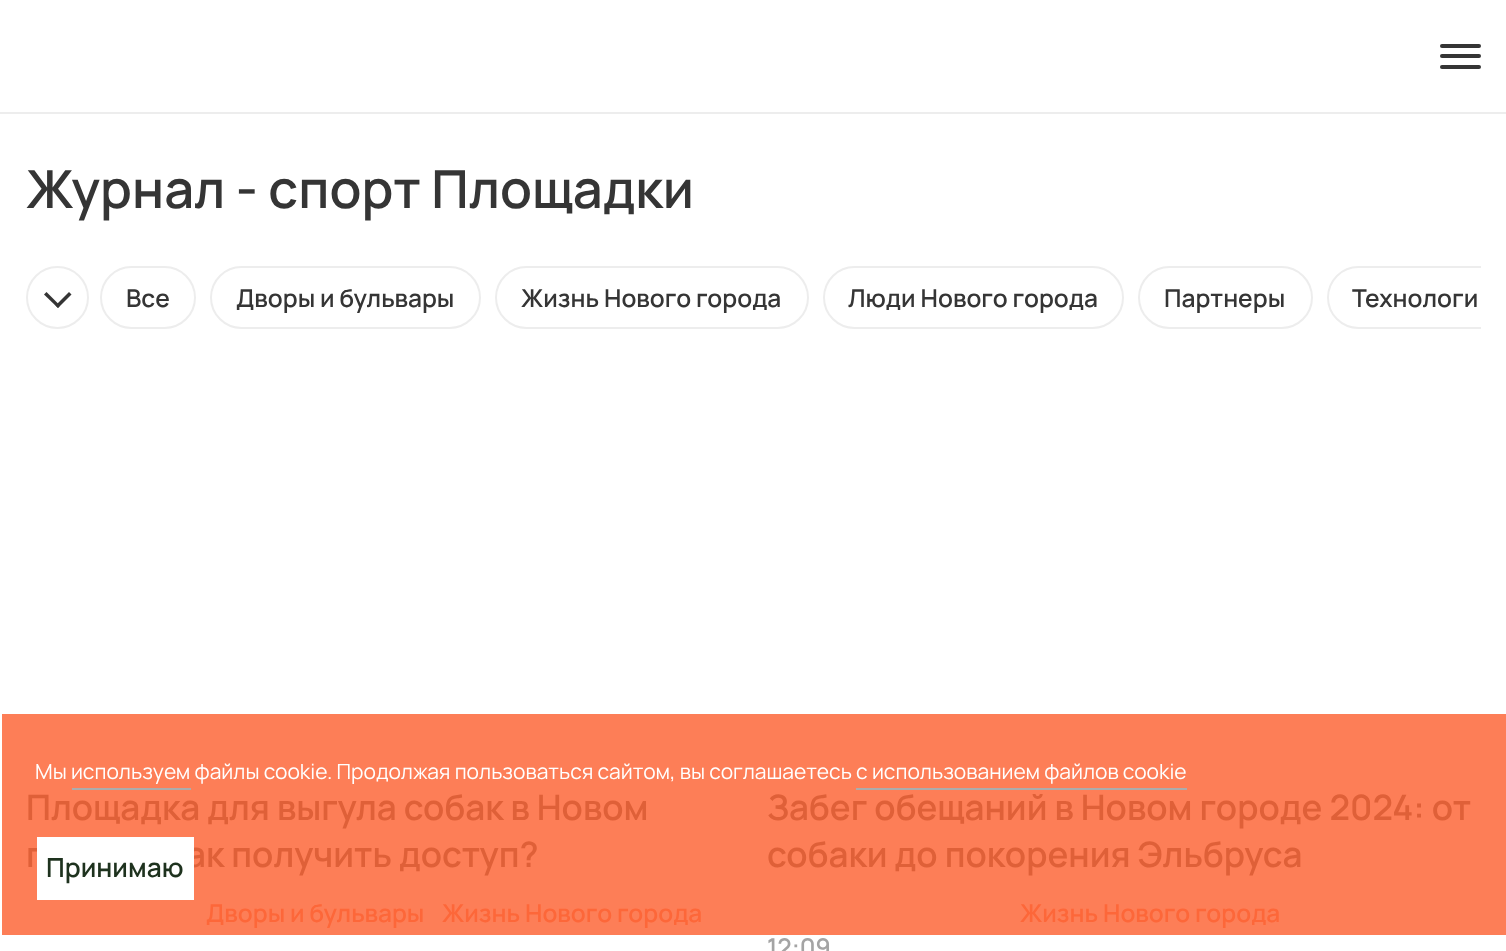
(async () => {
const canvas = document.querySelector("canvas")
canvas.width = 1506
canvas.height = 951
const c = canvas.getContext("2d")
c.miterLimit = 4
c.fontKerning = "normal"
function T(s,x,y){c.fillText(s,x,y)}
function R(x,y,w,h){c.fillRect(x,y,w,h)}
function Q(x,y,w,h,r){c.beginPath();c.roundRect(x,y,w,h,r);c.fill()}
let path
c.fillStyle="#fff"
R(0,0,1506,951)
c.fillStyle="#fd7e57"
R(2,714,1504,221)
c.fillStyle="#ededed"
R(0,112,1506,2)
c.fillStyle="#353535"
Q(1440,44,41,4,2)
Q(1440,54,41,4,2)
Q(1440,65,41,4,2)
c.font="600 52.5px Manrope"
T("Журнал - спорт Площадки",26,208)
c.beginPath()
c.arc(57.5,297.5,30.5,0,7)
c.strokeStyle="#ededed"
c.lineWidth=2
c.stroke()
path = new Path2D("M55.5 305.5l13.5-13.5l2.5 2.5l-13.5 13.5z")
c.fill(path)
path = new Path2D("M44 294.5l2.5-2.5l13.5 13.5l-2 2.5z")
c.fill(path)
c.beginPath()
c.roundRect(101,267,94,61,30.5)
c.stroke()
c.font="600 24.5px Manrope"
T("Все",126,307)
c.beginPath()
c.roundRect(211,267,269,61,30.5)
c.stroke()
T("Дворы и бульвары",236,307)
c.beginPath()
c.roundRect(496,267,312,61,30.5)
c.stroke()
T("Жизнь Нового города",521,307)
c.beginPath()
c.roundRect(824,267,299,61,30.5)
c.stroke()
T("Люди Нового города",848,307)
c.beginPath()
c.roundRect(1139,267,173,61,30.5)
c.stroke()
T("Партнеры",1164,307)
c.save()
c.beginPath()
c.rect(100,266,1381,63)
c.clip()
c.beginPath()
c.roundRect(1328,267,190,61,30.5)
c.stroke()
c.restore()
T("Технологи",1352,307)
c.font="600 35px Manrope"
c.fillStyle="#df6038"
T("Площадка для выгула собак в Новом",26,820)
T("г",26,867)
T("ак получить доступ?",186,867)
c.font="600 24.5px Manrope"
c.fillStyle="#fd6739"
T("Дворы и бульвары",206,922)
T("Жизнь Нового города",442,922)
c.font="600 35px Manrope"
c.fillStyle="#df6038"
T("Забег обещаний в Новом городе 2024: от",767,820)
T("собаки до покорения Эльбруса",767,867)
c.font="600 24.5px Manrope"
c.fillStyle="#fd6739"
T("Жизнь Нового города",1020,922)
c.fillStyle="#a4a4a4"
T("12:09",767,956)
c.font="21px Manrope"
c.fillStyle="#fff"
T("Мы используем файлы cookie. Продолжая пользоваться сайтом, вы соглашаетесь с использованием файлов cookie",35,779)
c.fillStyle="#acacac"
R(72,788,119,2)
R(856,788,331,2)
c.fillStyle="#fff"
R(37,837,157,63)
c.font="600 26.25px Manrope"
c.fillStyle="#1e321e"
T("Принимаю",46,877)
})()
